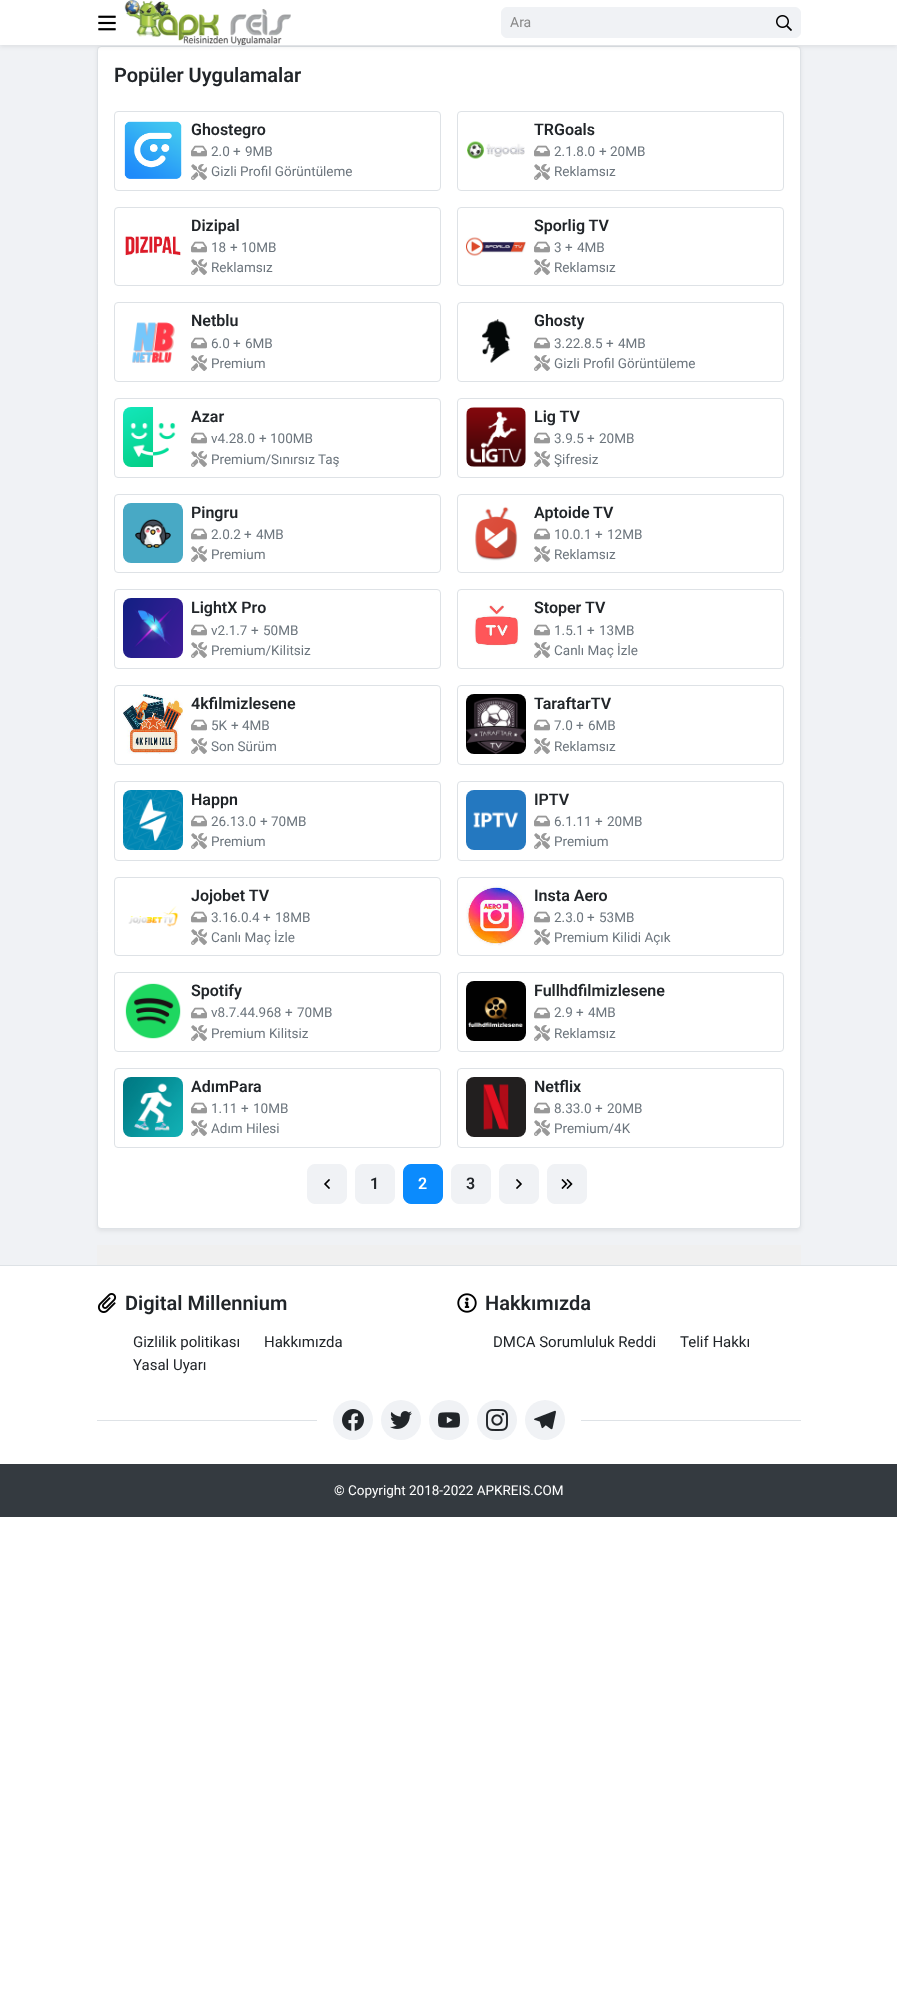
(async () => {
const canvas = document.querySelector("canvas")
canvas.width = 897
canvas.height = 2008
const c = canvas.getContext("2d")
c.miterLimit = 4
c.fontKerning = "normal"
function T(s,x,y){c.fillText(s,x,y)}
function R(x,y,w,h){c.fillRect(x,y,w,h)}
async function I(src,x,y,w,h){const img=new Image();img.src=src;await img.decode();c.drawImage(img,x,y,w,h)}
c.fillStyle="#fff"
R(0,0,897,2008)
c.fillStyle="#f0f2f5"
R(0,45,897,1220)
c.fillStyle="#00000012"
c.filter="blur(2px)"
c.beginPath()
c.roundRect(97,48,704,1183,4)
c.fill()
c.filter="none"
c.fillStyle="#fff"
c.beginPath()
c.roundRect(97.5,46.5,703,1182,3.5)
c.fill()
c.strokeStyle="#dee2e6"
c.stroke()
c.fillStyle="#00000012"
c.filter="blur(2px)"
c.beginPath()
c.rect(0,2,897,45)
c.fill()
c.filter="none"
c.fillStyle="#fff"
R(0,0,897,45)
await I("1.png",98,15,18,16)
await I("2.png",124,0,167,45)
c.fillStyle="#f0f2f5"
c.beginPath()
c.roundRect(501.5,7.5,266,30,[5.5,0,0,5.5])
c.fill()
c.strokeStyle="#f0f2f5"
c.stroke()
c.font="14px Roboto"
c.fillStyle="#898989"
T("Ara",510,27)
c.fillStyle="#f0f2f5"
c.beginPath()
c.roundRect(767.5,7.5,33,30,[0,5.5,5.5,0])
c.fill()
c.stroke()
await I("3.png",776,15,16,16)
c.font="600 20px Roboto"
c.fillStyle="#212529"
T("Popüler Uygulamalar",114,82)
c.beginPath()
c.roundRect(114.5,111.5,326,79,3.5)
c.strokeStyle="#dee2e6"
c.stroke()
await I("4.png",124,121,58,58)
c.font="600 16px Roboto"
T("Ghostegro",191,135)
await I("5.png",191,145,16,12)
c.font="13.5px Roboto"
c.fillStyle="#6c757d"
T("2.0",211,156)
T("+",233,156)
T("9MB",245,156)
await I("6.png",191,164,16,16)
T("Gizli Profil Görüntüleme",211,176)
c.beginPath()
c.roundRect(457.5,111.5,326,79,3.5)
c.stroke()
await I("7.png",467,141,58,18)
c.font="600 16px Roboto"
c.fillStyle="#212529"
T("TRGoals",534,135)
await I("5.png",534,145,16,12)
c.font="13.5px Roboto"
c.fillStyle="#6c757d"
T("2.1.8.0",554,156)
T("+",599,156)
T("20MB",610,156)
await I("6.png",534,164,16,16)
T("Reklamsız",554,176)
c.beginPath()
c.roundRect(114.5,207.5,326,78,3.5)
c.stroke()
await I("8.png",125,236,56,20)
c.font="600 16px Roboto"
c.fillStyle="#212529"
T("Dizipal",191,231)
await I("5.png",191,241,16,12)
c.font="13.5px Roboto"
c.fillStyle="#6c757d"
T("18",211,252)
T("+",230,252)
T("10MB",241,252)
await I("6.png",191,259,16,16)
T("Reklamsız",211,272)
c.beginPath()
c.roundRect(457.5,207.5,326,78,3.5)
c.stroke()
await I("9.png",466,237,60,19)
c.font="600 16px Roboto"
c.fillStyle="#212529"
T("Sporlig TV",534,231)
await I("5.png",534,241,16,12)
c.font="13.5px Roboto"
c.fillStyle="#6c757d"
T("3",554,252)
T("+",565,252)
T("4MB",577,252)
await I("6.png",534,259,16,16)
T("Reklamsız",554,272)
c.beginPath()
c.roundRect(114.5,302.5,326,79,3.5)
c.stroke()
await I("10.png",132,322,43,42)
c.font="600 16px Roboto"
c.fillStyle="#212529"
T("Netblu",191,326)
await I("5.png",191,337,16,12)
c.font="13.5px Roboto"
c.fillStyle="#6c757d"
T("6.0",211,348)
T("+",233,348)
T("6MB",245,348)
await I("6.png",191,355,16,16)
T("Premium",211,368)
c.beginPath()
c.roundRect(457.5,302.5,326,79,3.5)
c.stroke()
await I("11.png",482,319,29,44)
c.font="600 16px Roboto"
c.fillStyle="#212529"
T("Ghosty",534,326)
await I("5.png",534,337,16,12)
c.font="13.5px Roboto"
c.fillStyle="#6c757d"
T("3.22.8.5",554,348)
T("+",606,348)
T("4MB",618,348)
await I("6.png",534,355,16,16)
T("Gizli Profil Görüntüleme",554,368)
c.beginPath()
c.roundRect(114.5,398.5,326,79,3.5)
c.stroke()
await I("12.png",123,407,53,60)
c.font="600 16px Roboto"
c.fillStyle="#212529"
T("Azar",191,422)
await I("5.png",191,432,16,12)
c.font="13.5px Roboto"
c.fillStyle="#6c757d"
T("v4.28.0",211,443)
T("+",259,443)
T("100MB",270,443)
await I("6.png",191,451,16,16)
T("Premium/Sınırsız Taş",211,464)
c.beginPath()
c.roundRect(457.5,398.5,326,79,3.5)
c.stroke()
await I("13.png",466,407,60,60)
c.font="600 16px Roboto"
c.fillStyle="#212529"
T("Lig TV",534,422)
await I("5.png",534,432,16,12)
c.font="13.5px Roboto"
c.fillStyle="#6c757d"
T("3.9.5",554,443)
T("+",587,443)
T("20MB",599,443)
await I("6.png",534,451,16,16)
T("Şifresiz",554,464)
c.beginPath()
c.roundRect(114.5,494.5,326,78,3.5)
c.stroke()
await I("14.png",123,503,60,60)
c.font="600 16px Roboto"
c.fillStyle="#212529"
T("Pingru",191,518)
await I("5.png",191,528,16,12)
c.font="13.5px Roboto"
c.fillStyle="#6c757d"
T("2.0.2",211,539)
T("+",244,539)
T("4MB",256,539)
await I("6.png",191,546,16,16)
T("Premium",211,559)
c.beginPath()
c.roundRect(457.5,494.5,326,78,3.5)
c.stroke()
await I("15.png",475,506,43,55)
c.font="600 16px Roboto"
c.fillStyle="#212529"
T("Aptoide TV",534,518)
await I("5.png",534,528,16,12)
c.font="13.5px Roboto"
c.fillStyle="#6c757d"
T("10.0.1",554,539)
T("+",595,539)
T("12MB",607,539)
await I("6.png",534,546,16,16)
T("Reklamsız",554,559)
c.beginPath()
c.roundRect(114.5,589.5,326,79,3.5)
c.stroke()
await I("16.png",123,598,60,60)
c.font="600 16px Roboto"
c.fillStyle="#212529"
T("LightX Pro",191,613)
await I("5.png",191,624,16,12)
c.font="13.5px Roboto"
c.fillStyle="#6c757d"
T("v2.1.7",211,635)
T("+",251,635)
T("50MB",263,635)
await I("6.png",191,642,16,16)
T("Premium/Kilitsiz",211,655)
c.beginPath()
c.roundRect(457.5,589.5,326,79,3.5)
c.stroke()
await I("17.png",474,605,45,41)
c.font="600 16px Roboto"
c.fillStyle="#212529"
T("Stoper TV",534,613)
await I("5.png",534,624,16,12)
c.font="13.5px Roboto"
c.fillStyle="#6c757d"
T("1.5.1",554,635)
T("+",587,635)
T("13MB",599,635)
await I("6.png",534,642,16,16)
T("Canlı Maç İzle",554,655)
c.beginPath()
c.roundRect(114.5,685.5,326,79,3.5)
c.stroke()
await I("18.png",123,694,60,60)
c.font="600 16px Roboto"
c.fillStyle="#212529"
T("4kfilmizlesene",191,709)
await I("5.png",191,719,16,12)
c.font="13.5px Roboto"
c.fillStyle="#6c757d"
T("5K",211,730)
T("+",231,730)
T("4MB",242,730)
await I("6.png",191,738,16,16)
T("Son Sürüm",211,751)
c.beginPath()
c.roundRect(457.5,685.5,326,79,3.5)
c.stroke()
await I("19.png",466,694,60,60)
c.font="600 16px Roboto"
c.fillStyle="#212529"
T("TaraftarTV",534,709)
await I("5.png",534,719,16,12)
c.font="13.5px Roboto"
c.fillStyle="#6c757d"
T("7.0",554,730)
T("+",576,730)
T("6MB",588,730)
await I("6.png",534,738,16,16)
T("Reklamsız",554,751)
c.beginPath()
c.roundRect(114.5,781.5,326,79,3.5)
c.stroke()
await I("20.png",123,790,60,60)
c.font="600 16px Roboto"
c.fillStyle="#212529"
T("Happn",191,805)
await I("5.png",191,815,16,12)
c.font="13.5px Roboto"
c.fillStyle="#6c757d"
T("26.13.0",211,826)
T("+",260,826)
T("70MB",271,826)
await I("6.png",191,833,16,16)
T("Premium",211,846)
c.beginPath()
c.roundRect(457.5,781.5,326,79,3.5)
c.stroke()
await I("21.png",466,790,60,60)
c.font="600 16px Roboto"
c.fillStyle="#212529"
T("IPTV",534,805)
await I("5.png",534,815,16,12)
c.font="13.5px Roboto"
c.fillStyle="#6c757d"
T("6.1.11",554,826)
T("+",595,826)
T("20MB",607,826)
await I("6.png",534,833,16,16)
T("Premium",554,846)
c.beginPath()
c.roundRect(114.5,877.5,326,78,3.5)
c.stroke()
await I("22.png",128,906,51,21)
c.font="600 16px Roboto"
c.fillStyle="#212529"
T("Jojobet TV",191,901)
await I("5.png",191,911,16,12)
c.font="13.5px Roboto"
c.fillStyle="#6c757d"
T("3.16.0.4",211,922)
T("+",263,922)
T("18MB",275,922)
await I("6.png",191,929,16,16)
T("Canlı Maç İzle",211,942)
c.beginPath()
c.roundRect(457.5,877.5,326,78,3.5)
c.stroke()
await I("23.png",466,886,60,60)
c.font="600 16px Roboto"
c.fillStyle="#212529"
T("Insta Aero",534,901)
await I("5.png",534,911,16,12)
c.font="13.5px Roboto"
c.fillStyle="#6c757d"
T("2.3.0",554,922)
T("+",587,922)
T("53MB",599,922)
await I("6.png",534,929,16,16)
T("Premium Kilidi Açık",554,942)
c.beginPath()
c.roundRect(114.5,972.5,326,79,3.5)
c.stroke()
await I("24.png",125,983,56,56)
c.font="600 16px Roboto"
c.fillStyle="#212529"
T("Spotify",191,996)
await I("5.png",191,1007,16,12)
c.font="13.5px Roboto"
c.fillStyle="#6c757d"
T("v8.7.44.968",211,1017)
T("+",285,1017)
T("70MB",297,1017)
await I("6.png",191,1025,16,16)
T("Premium Kilitsiz",211,1038)
c.beginPath()
c.roundRect(457.5,972.5,326,79,3.5)
c.stroke()
await I("25.png",466,981,60,60)
c.font="600 16px Roboto"
c.fillStyle="#212529"
T("Fullhdfilmizlesene",534,996)
await I("5.png",534,1007,16,12)
c.font="13.5px Roboto"
c.fillStyle="#6c757d"
T("2.9",554,1017)
T("+",576,1017)
T("4MB",588,1017)
await I("6.png",534,1025,16,16)
T("Reklamsız",554,1038)
c.beginPath()
c.roundRect(114.5,1068.5,326,79,3.5)
c.stroke()
await I("26.png",123,1077,60,60)
c.font="600 16px Roboto"
c.fillStyle="#212529"
T("AdımPara",191,1092)
await I("5.png",191,1102,16,12)
c.font="13.5px Roboto"
c.fillStyle="#6c757d"
T("1.11",211,1113)
T("+",241,1113)
T("10MB",253,1113)
await I("6.png",191,1120,16,16)
T("Adım Hilesi",211,1133)
c.beginPath()
c.roundRect(457.5,1068.5,326,79,3.5)
c.stroke()
await I("27.png",466,1077,60,60)
c.font="600 16px Roboto"
c.fillStyle="#212529"
T("Netflix",534,1092)
await I("5.png",534,1102,16,12)
c.font="13.5px Roboto"
c.fillStyle="#6c757d"
T("8.33.0",554,1113)
T("+",595,1113)
T("20MB",607,1113)
await I("6.png",534,1120,16,16)
T("Premium/4K",554,1133)
c.fillStyle="#f0f2f5"
c.beginPath()
c.roundRect(307.5,1164.5,39,39,7.5)
c.fill()
c.strokeStyle="#f0f2f5"
c.stroke()
await I("28.png",324,1179,6,10)
c.beginPath()
c.roundRect(355.5,1164.5,39,39,7.5)
c.fill()
c.stroke()
c.font="600 16px Roboto"
c.fillStyle="#212529"
T("1",370,1189)
c.fillStyle="#0b8bfd"
c.beginPath()
c.roundRect(403.5,1164.5,39,39,7.5)
c.fill()
c.strokeStyle="#0b8bfd"
c.stroke()
c.fillStyle="#fff"
T("2",418,1189)
c.fillStyle="#f0f2f5"
c.beginPath()
c.roundRect(451.5,1164.5,39,39,7.5)
c.fill()
c.strokeStyle="#f0f2f5"
c.stroke()
c.fillStyle="#212529"
T("3",466,1189)
c.fillStyle="#f0f2f5"
c.beginPath()
c.roundRect(499.5,1164.5,39,39,7.5)
c.fill()
c.stroke()
await I("29.png",516,1179,6,10)
c.beginPath()
c.roundRect(547.5,1164.5,39,39,7.5)
c.fill()
c.stroke()
await I("30.png",561,1179,12,10)
c.fillStyle="#f0f0f0"
R(97,1245,704,20)
c.fillStyle="#dee2e6"
R(0,1265,897,1)
await I("31.png",97,1293,20,20)
c.font="600 20px Roboto"
c.fillStyle="#212529"
T("Digital Millennium",125,1310)
c.font="15px Roboto"
T("Gizlilik politikası",133,1347)
T("Hakkımızda",264,1347)
T("Yasal Uyarı",133,1370)
await I("32.png",457,1293,20,20)
c.font="600 20px Roboto"
T("Hakkımızda",485,1310)
c.font="15px Roboto"
T("DMCA Sorumluluk Reddi",493,1347)
T("Telif Hakkı",680,1347)
c.fillStyle="#dee2e6"
R(97,1420,220,1)
c.fillStyle="#f0f2f5"
c.beginPath()
c.arc(353,1420,20,0,7)
c.fill()
await I("33.png",342,1409,22,22)
c.beginPath()
c.arc(401,1420,20,0,7)
c.fill()
await I("34.png",390,1411,22,18)
c.beginPath()
c.arc(449,1420,20,0,7)
c.fill()
await I("35.png",438,1412,22,16)
c.beginPath()
c.arc(497,1420,20,0,7)
c.fill()
await I("36.png",486,1409,22,22)
c.beginPath()
c.arc(545,1420,20,0,7)
c.fill()
await I("37.png",534,1410,22,20)
c.fillStyle="#dee2e6"
R(581,1420,220,1)
c.fillStyle="#343a40"
R(0,1464,897,53)
c.font="13.5px Roboto"
c.fillStyle="#fff"
T("© Copyright 2018-2022 APKREIS.COM",334,1495)
})()
